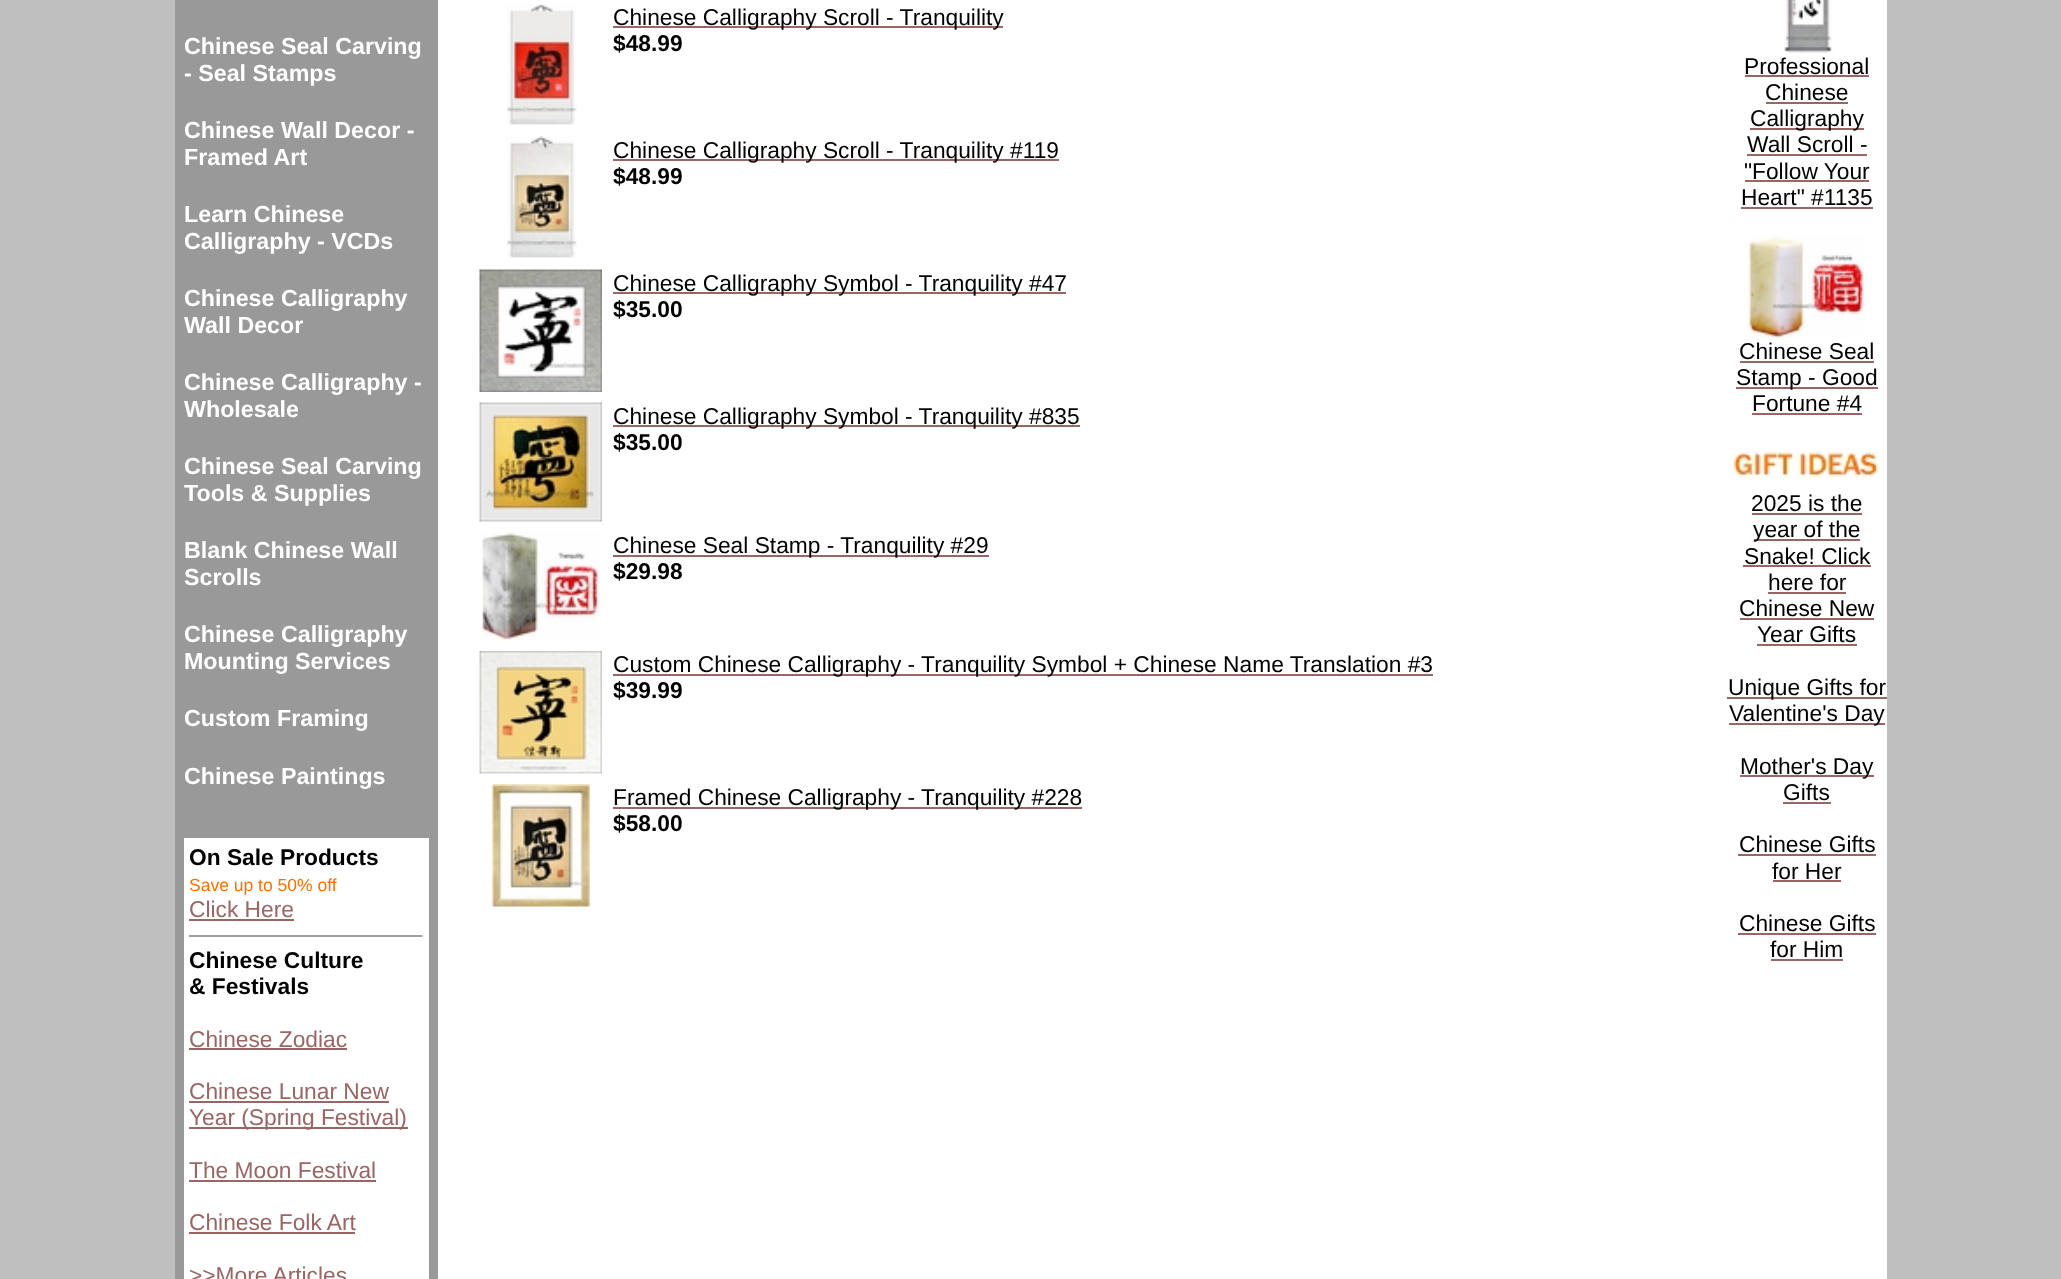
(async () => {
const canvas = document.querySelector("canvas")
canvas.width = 2061
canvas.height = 1279
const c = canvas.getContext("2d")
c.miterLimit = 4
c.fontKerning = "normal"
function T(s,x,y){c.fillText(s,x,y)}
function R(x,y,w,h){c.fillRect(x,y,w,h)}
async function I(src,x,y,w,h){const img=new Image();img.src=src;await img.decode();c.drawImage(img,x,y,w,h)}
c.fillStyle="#bfbfbf"
R(0,0,2061,1279)
c.fillStyle="#fff"
R(438,0,1449,1279)
c.fillStyle="#999"
R(175,0,263,1279)
c.font="bold 23.25px Liberation Sans"
c.fillStyle="#fff"
T("Chinese Seal Carving",184,54)
T("- Seal Stamps",184,81)
T("Chinese Wall Decor -",184,138)
T("Framed Art",184,165)
T("Learn Chinese",184,222)
T("Calligraphy - VCDs",184,249)
T("Chinese Calligraphy",184,306)
T("Wall Decor",184,333)
T("Chinese Calligraphy -",184,390)
T("Wholesale",184,417)
T("Chinese Seal Carving",184,474)
T("Tools & Supplies",184,501)
T("Blank Chinese Wall",184,558)
T("Scrolls",184,585)
T("Chinese Calligraphy",184,642)
T("Mounting Services",184,669)
T("Custom Framing",184,726)
T("Chinese Paintings",184,784)
R(184,838,245,441)
c.font="bold 22.75px Liberation Sans"
c.fillStyle="#000"
T("On Sale Products",189,865)
c.font="17.5px Liberation Sans"
c.fillStyle="#ff6f00"
T("Save up to 50% off",189,891)
c.font="22.75px Liberation Sans"
c.fillStyle="#966"
T("Click Here",189,917)
R(189,919,105,2)
c.fillStyle="#9f9f9f"
R(189,935,235,2)
c.fillStyle="#eee"
R(422,935,2,2)
c.font="bold 22.75px Liberation Sans"
c.fillStyle="#000"
T("Chinese Culture",189,968)
T("& Festivals",189,994)
c.font="22.75px Liberation Sans"
c.fillStyle="#966"
T("Chinese Zodiac",189,1047)
R(189,1048,158,2)
T("Chinese Lunar New",189,1099)
R(189,1101,200,2)
R(189,1127,219,2)
T("Year (Spring Festival)",189,1125)
T("The Moon Festival",189,1178)
R(189,1180,187,2)
T("Chinese Folk Art",189,1230)
R(189,1232,166,2)
T(">>More Articles",189,1283)
await I("1.png",506,4,71,121)
R(613,26,390,2)
c.fillStyle="#000"
T("Chinese Calligraphy Scroll - Tranquility",613,25)
c.font="bold 22.75px Liberation Sans"
T("$48.99",613,51)
await I("2.png",506,136,71,122)
c.fillStyle="#966"
R(613,159,446,2)
c.font="22.75px Liberation Sans"
c.fillStyle="#000"
T("Chinese Calligraphy Scroll - Tranquility #119",613,158)
c.font="bold 22.75px Liberation Sans"
T("$48.99",613,184)
await I("3.png",479,269,123,123)
c.fillStyle="#966"
R(613,292,453,2)
c.font="22.75px Liberation Sans"
c.fillStyle="#000"
T("Chinese Calligraphy Symbol - Tranquility #47",613,291)
c.font="bold 22.75px Liberation Sans"
T("$35.00",613,317)
await I("4.png",479,402,123,120)
c.fillStyle="#966"
R(613,425,467,2)
c.font="22.75px Liberation Sans"
c.fillStyle="#000"
T("Chinese Calligraphy Symbol - Tranquility #835",613,424)
c.font="bold 22.75px Liberation Sans"
T("$35.00",613,450)
await I("5.png",481,532,119,109)
c.fillStyle="#966"
R(613,555,376,2)
c.font="22.75px Liberation Sans"
c.fillStyle="#000"
T("Chinese Seal Stamp - Tranquility #29",613,553)
c.font="bold 22.75px Liberation Sans"
T("$29.98",613,579)
await I("6.png",479,651,123,123)
c.fillStyle="#966"
R(613,674,820,2)
c.font="22.75px Liberation Sans"
c.fillStyle="#000"
T("Custom Chinese Calligraphy - Tranquility Symbol + Chinese Name Translation #3",613,672)
c.font="bold 22.75px Liberation Sans"
T("$39.99",613,698)
await I("7.png",491,784,99,123)
c.fillStyle="#966"
R(613,807,469,2)
c.font="22.75px Liberation Sans"
c.fillStyle="#000"
T("Framed Chinese Calligraphy - Tranquility #228",613,805)
c.font="bold 22.75px Liberation Sans"
T("$58.00",613,831)
await I("8.png",1784,0,49,53)
c.font="22.75px Liberation Sans"
T("Professional",1744,74)
c.fillStyle="#966"
R(1745,75,124,2)
c.fillStyle="#000"
T("Chinese",1765,100)
c.fillStyle="#966"
R(1766,102,82,2)
R(1750,128,114,2)
c.fillStyle="#000"
T("Calligraphy",1750,126)
T("Wall Scroll -",1747,152)
c.fillStyle="#966"
R(1747,154,120,2)
c.fillStyle="#000"
T("\"Follow Your",1744,179)
c.fillStyle="#966"
R(1745,180,124,2)
c.fillStyle="#000"
T("Heart\" #1135",1741,205)
c.fillStyle="#966"
R(1741,207,132,2)
await I("9.png",1747,236,118,102)
c.fillStyle="#000"
T("Chinese Seal",1739,359)
c.fillStyle="#966"
R(1740,361,134,2)
R(1736,387,142,2)
c.fillStyle="#000"
T("Stamp - Good",1736,385)
T("Fortune #4",1752,411)
c.fillStyle="#966"
R(1752,413,110,2)
await I("10.png",1732,451,148,27)
c.fillStyle="#000"
T("2025 is the",1751,511)
c.fillStyle="#966"
R(1752,513,110,2)
R(1754,539,106,2)
c.fillStyle="#000"
T("year of the",1753,537)
T("Snake! Click",1744,564)
c.fillStyle="#966"
R(1743,565,128,2)
c.fillStyle="#000"
T("here for",1768,590)
c.fillStyle="#966"
R(1768,592,78,2)
c.fillStyle="#000"
T("Chinese New",1739,616)
c.fillStyle="#966"
R(1740,618,134,2)
c.fillStyle="#000"
T("Year Gifts",1757,642)
c.fillStyle="#966"
R(1757,644,100,2)
R(1727,697,160,2)
c.fillStyle="#000"
T("Unique Gifts for",1728,695)
c.fillStyle="#966"
R(1729,723,156,2)
c.fillStyle="#000"
T("Valentine's Day",1729,721)
c.fillStyle="#966"
R(1740,775,134,2)
c.fillStyle="#000"
T("Mother's Day",1740,774)
T("Gifts",1783,800)
c.fillStyle="#966"
R(1783,802,48,2)
c.fillStyle="#000"
T("Chinese Gifts",1739,852)
c.fillStyle="#966"
R(1738,854,138,2)
c.fillStyle="#000"
T("for Her",1772,879)
c.fillStyle="#966"
R(1773,880,68,2)
c.fillStyle="#000"
T("Chinese Gifts",1739,931)
c.fillStyle="#966"
R(1738,933,138,2)
c.fillStyle="#000"
T("for Him",1770,957)
c.fillStyle="#966"
R(1771,959,72,2)
})()
